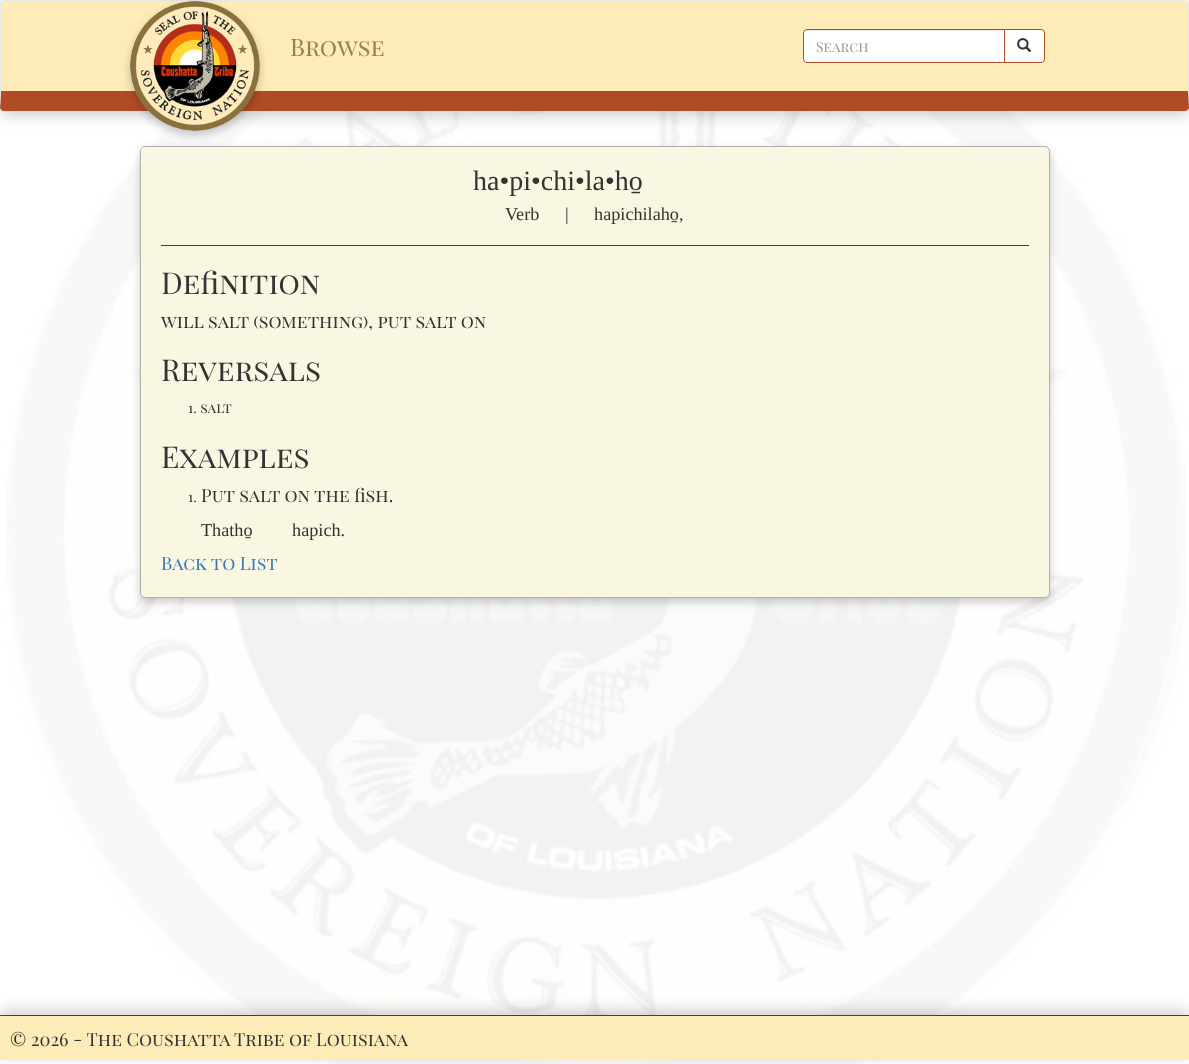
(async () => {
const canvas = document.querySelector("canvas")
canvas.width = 1189
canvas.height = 1064
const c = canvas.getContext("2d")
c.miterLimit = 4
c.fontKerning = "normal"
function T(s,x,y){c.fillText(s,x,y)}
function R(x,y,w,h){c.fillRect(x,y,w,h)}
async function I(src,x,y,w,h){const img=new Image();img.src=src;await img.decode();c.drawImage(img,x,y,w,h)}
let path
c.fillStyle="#fff"
R(0,0,1189,1064)
await I("1.png",6,0,1180,1064)
c.fillStyle="#00000033"
c.filter="blur(8px)"
c.beginPath()
c.roundRect(0,4,1189,111,4)
c.fill()
c.filter="none"
c.fillStyle="#fdecb8"
path = new Path2D("M4 1h1181c2 0 3 1 3 3v87h-1187v-87c0-2 1-3 3-3z")
c.fill(path)
c.fillStyle="#e7e7e7"
path = new Path2D("M4 0l-3 1l1 1l2-1h1181l2 1l1-1l-3-1z")
c.fill(path)
path = new Path2D("M1189 107v-103l-1-3l-1 1l1 2v87l1 17z")
c.fill(path)
c.fillStyle="#af4c26"
path = new Path2D("M4 111h1181c2 0 3-1 4-3l-1-17h-1187l-1 17c1 2 2 3 4 3z")
c.fill(path)
c.fillStyle="#e7e7e7"
path = new Path2D("M0 4v104l1-17v-87l1-2l-1-1z")
c.fill(path)
c.fillStyle="#00000033"
c.filter="blur(4px)"
c.beginPath()
c.roundRect(130,5,130,130,65)
c.fill()
c.filter="none"
await I("2.png",130,1,130,130)
c.font="24px Playfair Display SC"
c.fillStyle="#998051"
T("Browse",290,56)
c.fillStyle="#fff"
c.beginPath()
c.roundRect(803,29,202,34,[4,0,0,4])
c.fill()
c.fillStyle="#ececec"
path = new Path2D("M807 31h197v-1h-197c-2 0-3 2-3 4c0-2 1-3 3-3z")
c.fill(path)
c.beginPath()
c.roundRect(803.5,29.5,201,33,[3.5,0,0,3.5])
c.strokeStyle="#af4c26"
c.stroke()
c.font="14px Playfair Display SC"
c.fillStyle="#999"
T("Search",816,52)
c.fillStyle="#fff"
c.beginPath()
c.roundRect(1004.5,29.5,40,33,[0,3.5,3.5,0])
c.fill()
c.stroke()
await I("3.png",1017,38,15,14)
c.fillStyle="#00000033"
c.filter="blur(4px)"
c.beginPath()
c.roundRect(140,150,910,452,5)
c.fill()
c.filter="none"
c.fillStyle="#f9f6e1"
c.beginPath()
c.roundRect(140.5,146.5,909,451,4.5)
c.fill()
c.strokeStyle="#b0b0b0"
c.stroke()
c.font="28px Liberation Serif"
c.fillStyle="#333"
T("ha•pi•chi•la•ho̱",473,190)
c.wordSpacing="21px"
c.font="18.2px Liberation Serif"
T("Verb | hapichilaho̱,",505,220)
c.fillStyle="#a5141d"
R(161,245,868,1)
c.wordSpacing="0px"
c.font="30px Playfair Display SC"
c.fillStyle="#333"
T("Definition",161,294)
c.font="18.2px Playfair Display SC"
T("will salt (something), put salt on",161,328)
c.font="30px Playfair Display SC"
T("Reversals",161,381)
c.font="14px Playfair Display SC"
T("1. salt",188,413)
c.font="30px Playfair Display SC"
T("Examples",161,468)
c.font="14px Playfair Display SC"
T("1.",188,502)
c.font="18.2px Playfair Display SC"
T("Put salt on the fish.",201,502)
c.wordSpacing="35px"
c.font="18.2px Liberation Serif"
T("Thatho̱ hapich.",201,536)
c.wordSpacing="0px"
c.font="18.2px Playfair Display SC"
c.fillStyle="#337ab7"
T("Back to List",161,570)
c.fillStyle="#00000033"
c.filter="blur(8px)"
c.beginPath()
c.rect(0,1011,1189,45)
c.fill()
c.filter="none"
c.fillStyle="#fdecb8"
R(0,1016,1189,44)
c.fillStyle="#a5141d"
R(0,1015,1189,1)
c.fillStyle="#333"
T("© 2026 - The Coushatta Tribe of Louisiana",10,1046)
})()
